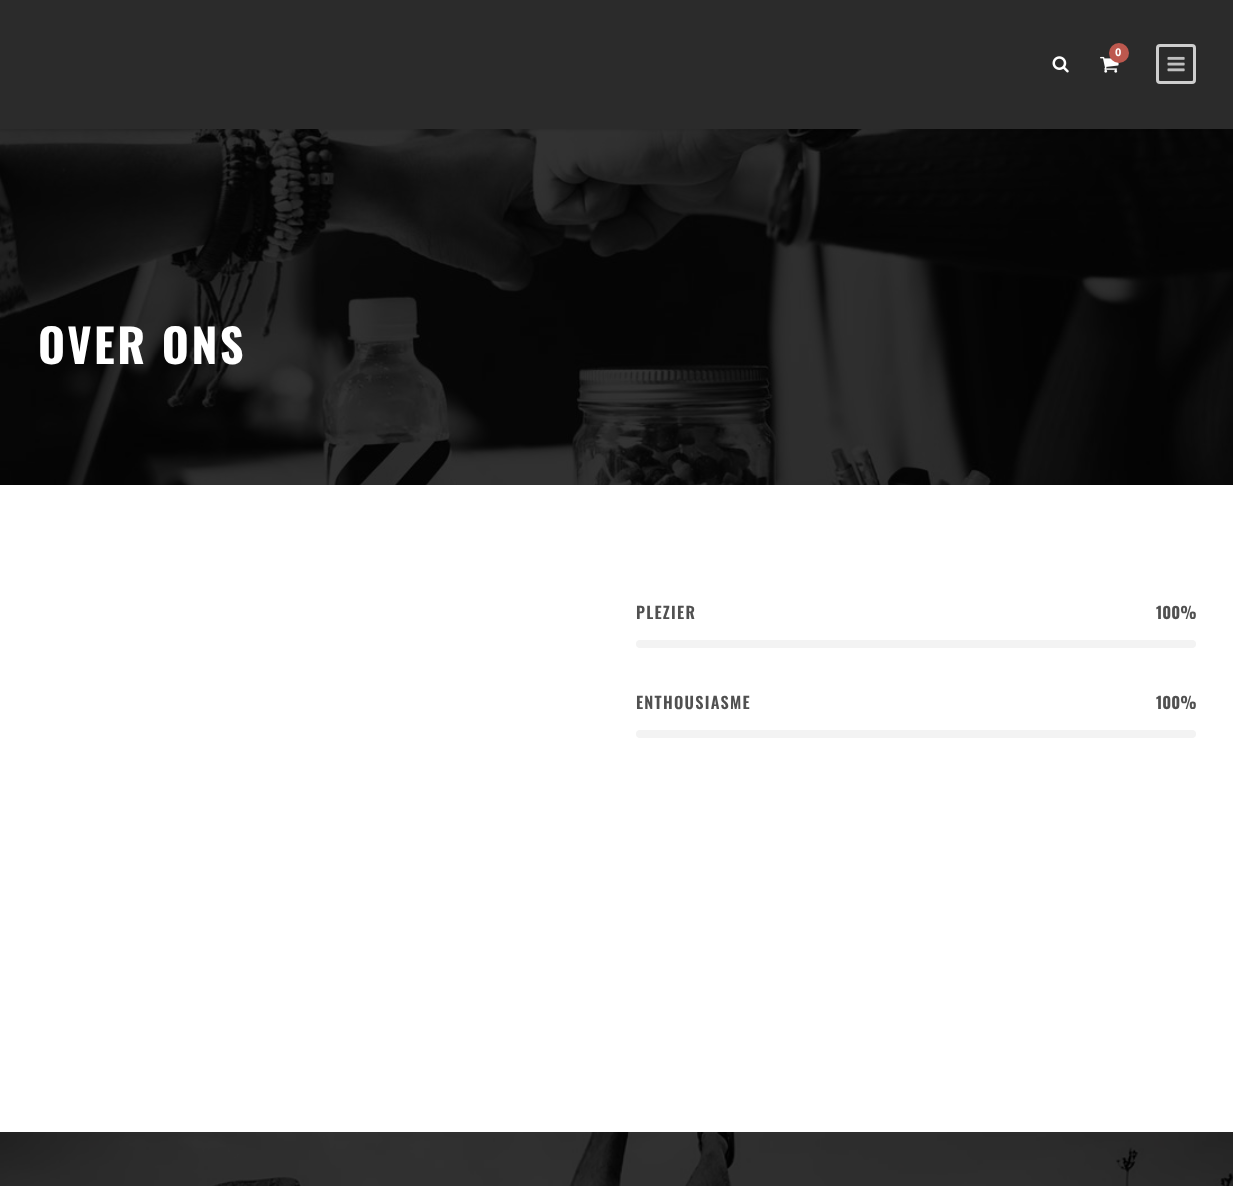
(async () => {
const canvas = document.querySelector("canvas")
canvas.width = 1233
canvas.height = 1186
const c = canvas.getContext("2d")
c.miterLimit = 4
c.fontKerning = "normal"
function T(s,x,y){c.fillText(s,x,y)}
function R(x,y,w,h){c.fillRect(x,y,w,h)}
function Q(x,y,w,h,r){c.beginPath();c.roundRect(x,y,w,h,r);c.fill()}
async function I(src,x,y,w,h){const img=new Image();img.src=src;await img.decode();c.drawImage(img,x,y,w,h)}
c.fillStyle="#fff"
R(0,0,1233,1186)
await I("4.png",0,129,1233,356)
c.fillStyle="#0000001a"
c.filter="blur(1px)"
c.beginPath()
c.rect(0,1,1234,129)
c.fill()
c.filter="none"
c.fillStyle="#2b2b2b"
R(0,0,1233,129)
await I("1.png",1100,56,19,17)
c.fillStyle="#bd584e"
c.beginPath()
c.arc(1119,53,10,0,7)
c.fill()
c.font="bold 12px Source Sans Pro"
c.fillStyle="#fff"
T("0",1115,56)
c.beginPath()
c.roundRect(1157.5,45.5,37,37,2.5)
c.strokeStyle="#cecece"
c.lineWidth=3
c.stroke()
await I("2.png",1167,56,18,16)
await I("3.png",1052,56,17,17)
c.letterSpacing="2.5px"
c.font="bold 46.25px Oswald"
T("OVER ONS",38,364)
c.letterSpacing="1.25px"
c.font="600 16.25px Oswald"
c.fillStyle="#505050"
T("PLEZIER",636,619)
c.letterSpacing="0px"
c.font="bold 16.25px Oswald"
T("100%",1156,619)
c.fillStyle="#f3f3f3"
Q(636,640,560,8,4)
c.letterSpacing="1.25px"
c.font="600 16.25px Oswald"
c.fillStyle="#505050"
T("ENTHOUSIASME",636,709)
c.letterSpacing="0px"
c.font="bold 16.25px Oswald"
T("100%",1156,709)
c.fillStyle="#f3f3f3"
Q(636,730,560,8,4)
await I("5.png",0,1132,1233,54)
})()
